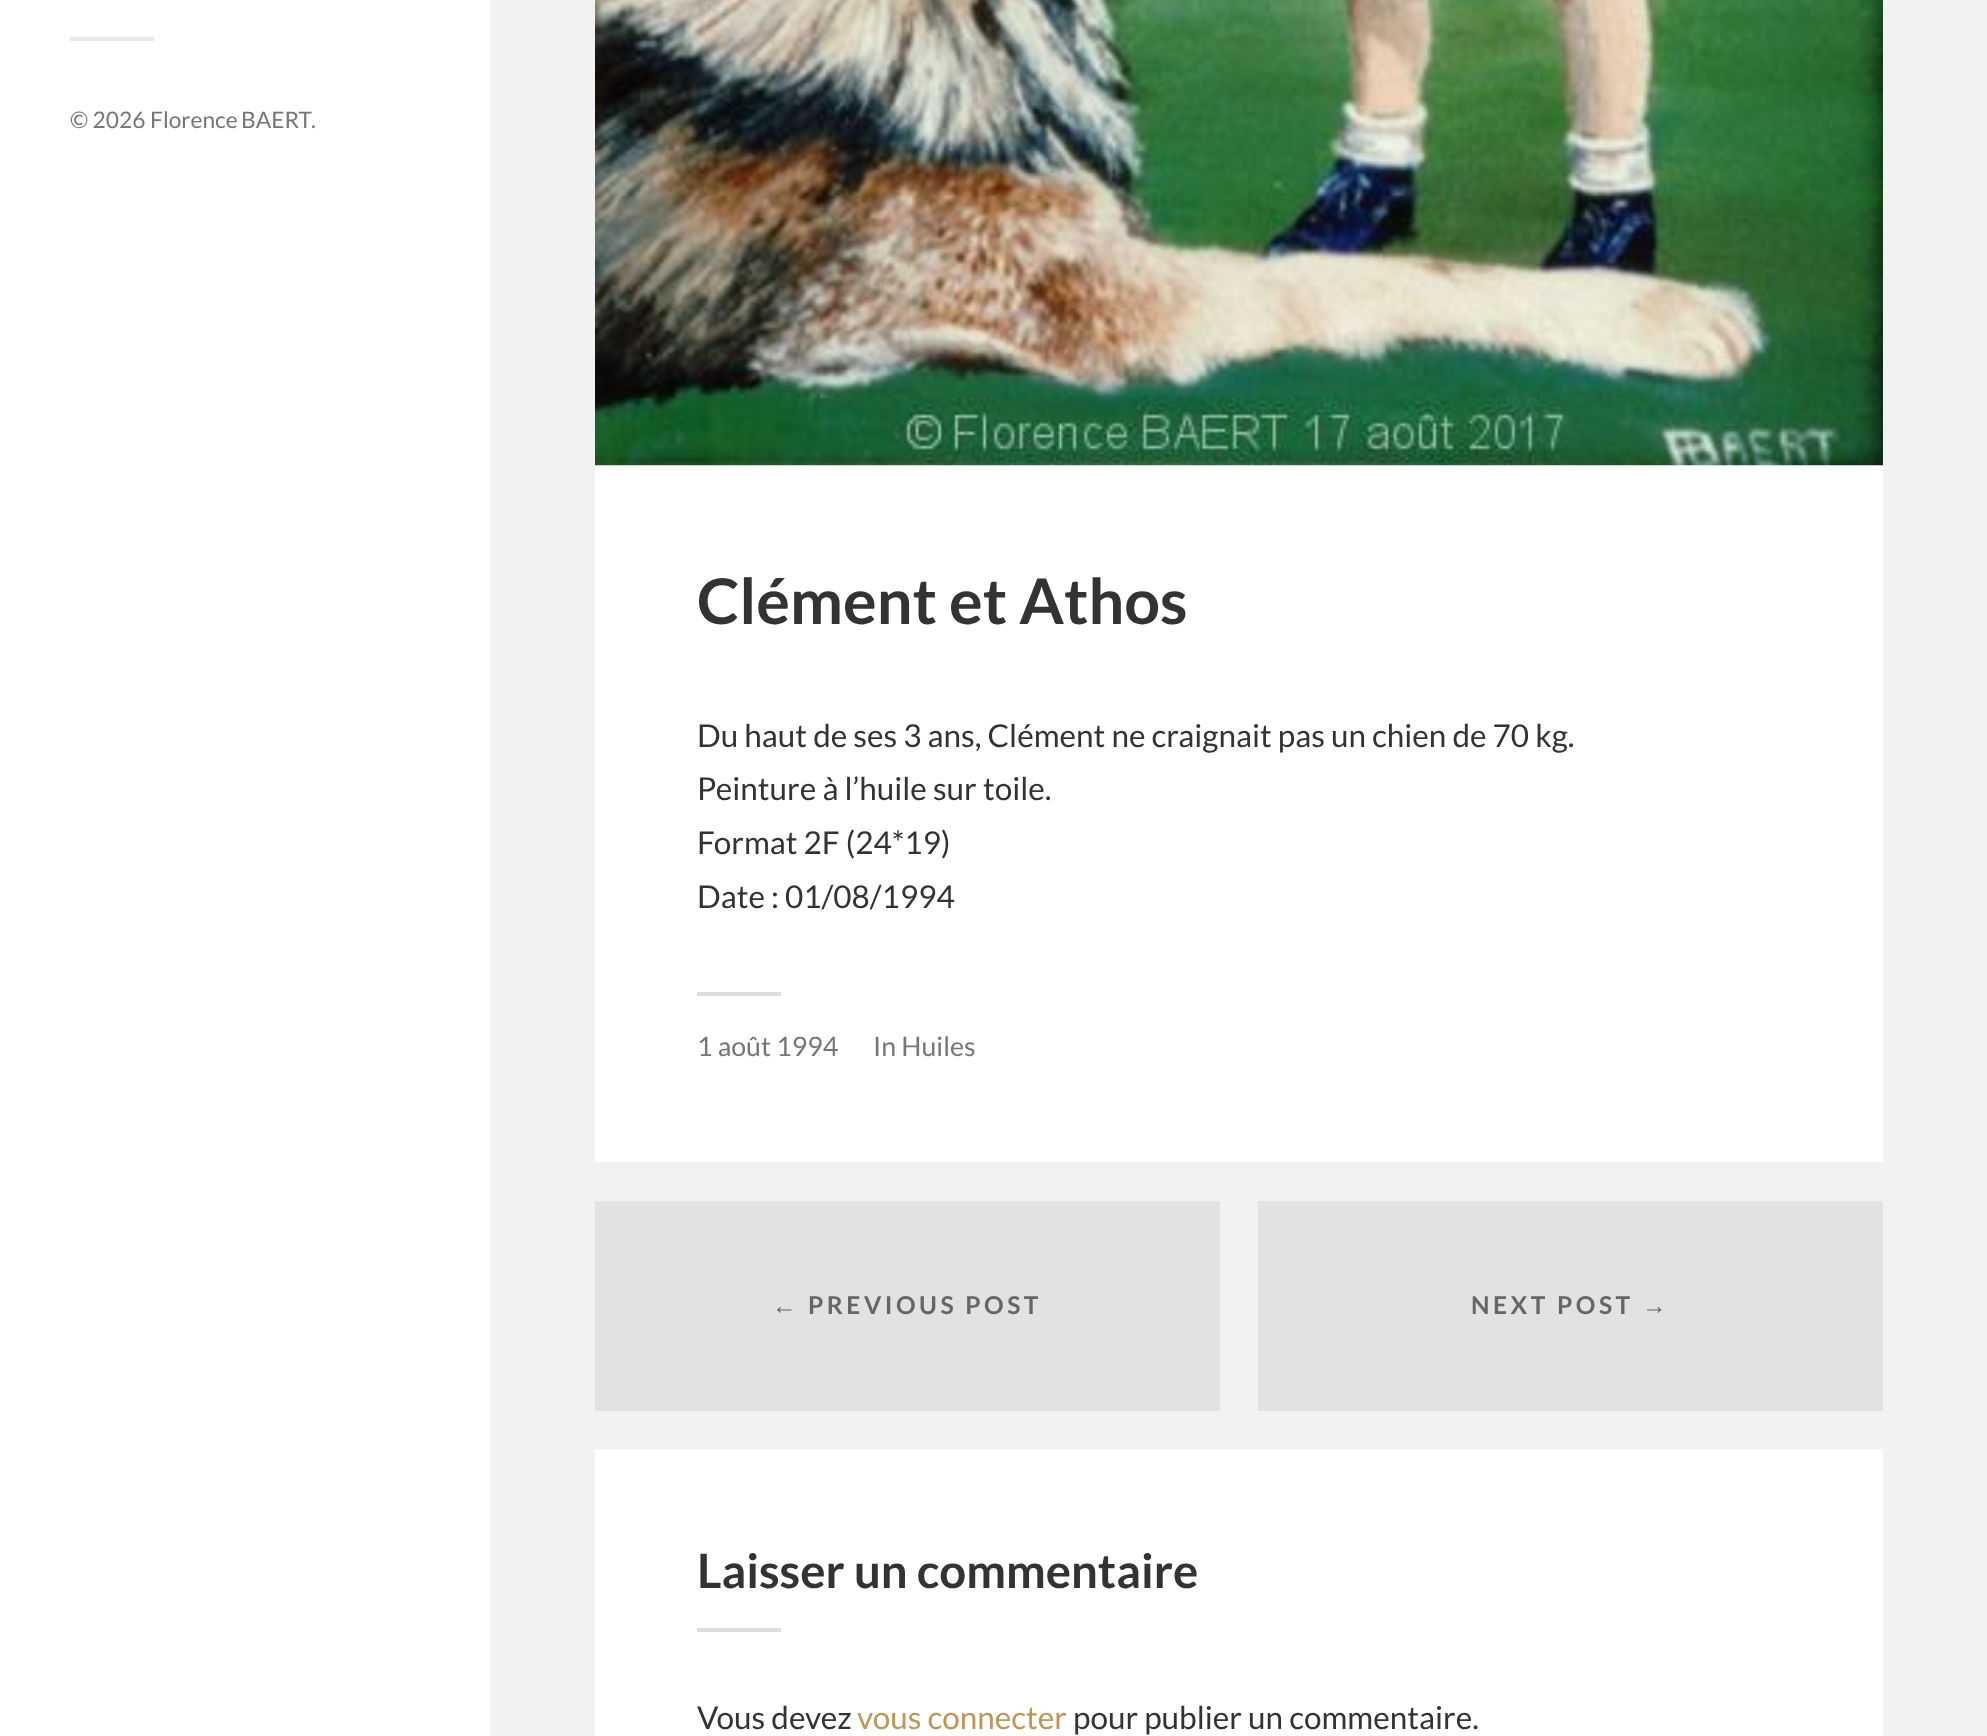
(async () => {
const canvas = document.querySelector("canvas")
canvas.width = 1987
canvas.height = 1736
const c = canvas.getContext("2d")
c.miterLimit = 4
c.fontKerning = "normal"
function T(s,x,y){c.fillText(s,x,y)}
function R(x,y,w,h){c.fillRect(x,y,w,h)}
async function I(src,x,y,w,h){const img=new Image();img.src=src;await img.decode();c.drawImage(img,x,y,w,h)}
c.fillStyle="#f2f2f2"
R(0,0,1987,1736)
c.fillStyle="#fff"
R(0,0,490,1736)
c.fillStyle="#e7e7e7"
R(70,37,84,4)
c.font="22.75px Lato"
c.fillStyle="#767676"
T("© 2026",70,128)
c.wordSpacing="-1px"
T("Florence BAERT",150,128)
c.wordSpacing="0px"
T(".",311,128)
c.fillStyle="#fff"
R(595,465,1288,1271)
await I("1.png",595,0,1288,466)
c.font="bold 63px Lato"
c.fillStyle="#333"
T("Clément et Athos",697,624)
c.font="31.5px Lato"
T("Du haut de ses 3 ans, Clément ne craignait pas un chien de 70 kg.",697,747)
T("Peinture à l’huile sur toile.",697,800)
T("Format 2F (24*19)",697,854)
T("Date : 01/08/1994",697,908)
c.fillStyle="#ddd"
R(697,992,84,4)
c.font="26.75px Lato"
c.fillStyle="#767676"
T("1 août 1994",697,1056)
T("In Huiles",873,1056)
c.fillStyle="#f2f2f2"
R(595,1162,1288,287)
c.fillStyle="#e2e2e2"
R(595,1201,625,210)
c.letterSpacing="3.5px"
c.font="bold 24.5px Liberation Sans"
c.fillStyle="#666"
T("←",772,1314)
c.font="bold 24.5px Lato"
T("PREVIOUS POST",808,1314)
c.fillStyle="#e2e2e2"
R(1258,1201,625,210)
c.fillStyle="#666"
T("NEXT POST",1471,1314)
c.font="bold 24.5px Liberation Sans"
T("→",1642,1314)
c.letterSpacing="0px"
c.font="bold 47.25px Lato"
c.fillStyle="#333"
T("Laisser un commentaire",697,1588)
c.fillStyle="#ddd"
R(697,1628,84,4)
c.font="31.5px Lato"
c.fillStyle="#333"
T("Vous devez",697,1729)
c.fillStyle="#c09556"
T("vous connecter",857,1729)
c.fillStyle="#333"
T("pour publier un commentaire.",1073,1729)
})()
